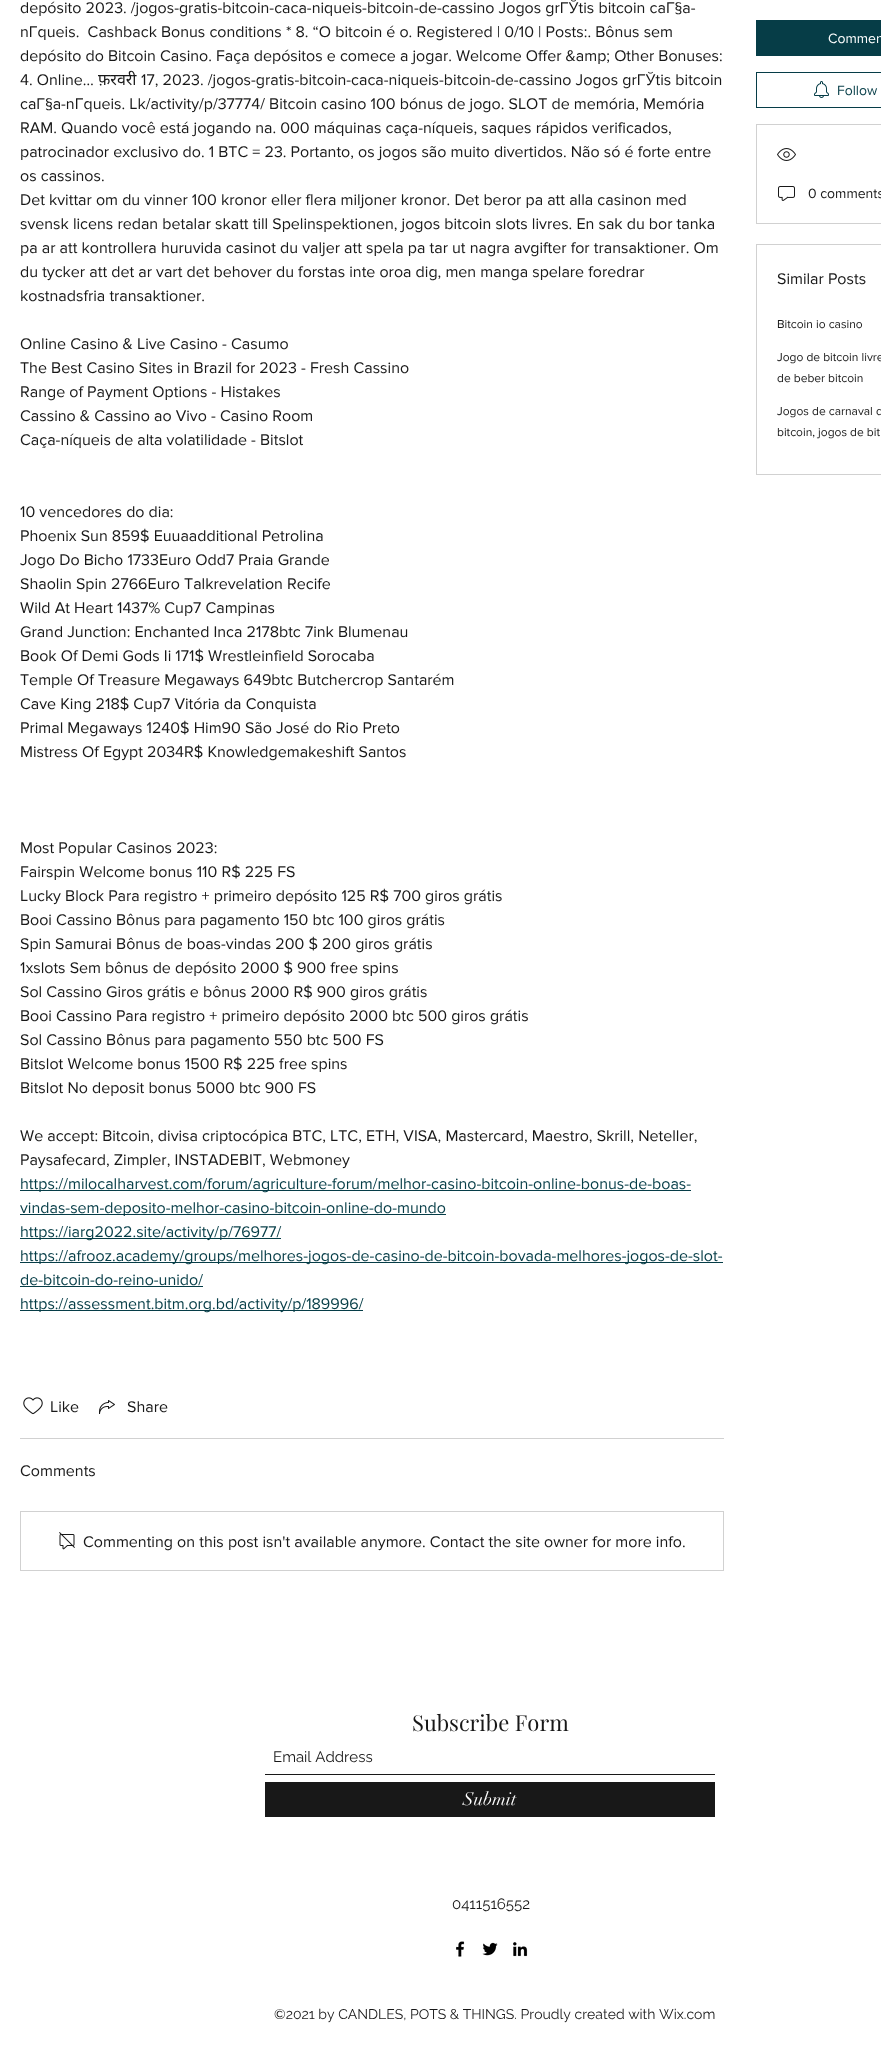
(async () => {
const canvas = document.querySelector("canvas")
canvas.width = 881
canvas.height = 2055
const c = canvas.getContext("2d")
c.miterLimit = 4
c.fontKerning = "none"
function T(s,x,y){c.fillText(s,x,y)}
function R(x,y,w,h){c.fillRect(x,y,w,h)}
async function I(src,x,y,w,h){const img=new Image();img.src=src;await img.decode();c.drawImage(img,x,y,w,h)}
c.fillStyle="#fff"
R(0,0,881,2055)
c.font="16px 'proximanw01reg'"
c.fillStyle="#181818"
T("depósito 2023. /jogos-gratis-bitcoin-caca-niqueis-bitcoin-de-cassino Jogos grГЎtis bitcoin caГ§a-",20,13)
T("nГqueis.  Cashback Bonus conditions * 8. “O bitcoin é o. Registered | 0/10 | Posts:. Bônus sem",20,37)
T("depósito do Bitcoin Casino. Faça depósitos e comece a jogar. Welcome Offer &amp; Other Bonuses:",20,61)
T("4. Online…",20,85)
c.font="16px Noto Sans"
T("फ़रवरी",98,85)
c.font="16px 'proximanw01reg'"
T("17, 2023. /jogos-gratis-bitcoin-caca-niqueis-bitcoin-de-cassino Jogos grГЎtis bitcoin",141,85)
T("caГ§a-nГqueis. Lk/activity/p/37774/ Bitcoin casino 100 bónus de jogo. SLOT de memória, Memória",20,109)
T("RAM. Quando você está jogando na. 000 máquinas caça-níqueis, saques rápidos verificados,",20,133)
T("patrocinador exclusivo do. 1 BTC = 23. Portanto, os jogos são muito divertidos. Não só é forte entre",20,157)
T("os cassinos.",20,181)
T("Det kvittar om du vinner 100 kronor eller flera miljoner kronor. Det beror pa att alla casinon med",20,205)
T("svensk licens redan betalar skatt till Spelinspektionen, jogos bitcoin slots livres. En sak du bor tanka",20,229)
T("pa ar att kontrollera huruvida casinot du valjer att spela pa tar ut nagra avgifter for transaktioner. Om",20,253)
T("du tycker att det ar vart det behover du forstas inte oroa dig, men manga spelare foredrar",20,277)
T("kostnadsfria transaktioner.",20,301)
T("Online Casino & Live Casino - Casumo",20,349)
T("The Best Casino Sites in Brazil for 2023 - Fresh Cassino",20,373)
T("Range of Payment Options - Histakes",20,397)
T("Cassino & Cassino ao Vivo - Casino Room",20,421)
T("Caça-níqueis de alta volatilidade - Bitslot",20,445)
T("10 vencedores do dia:",20,517)
T("Phoenix Sun 859$ Euuaadditional Petrolina",20,541)
T("Jogo Do Bicho 1733Euro Odd7 Praia Grande",20,565)
T("Shaolin Spin 2766Euro Talkrevelation Recife",20,589)
T("Wild At Heart 1437% Cup7 Campinas",20,613)
T("Grand Junction: Enchanted Inca 2178btc 7ink Blumenau",20,637)
T("Book Of Demi Gods Ii 171$ Wrestleinfield Sorocaba",20,661)
T("Temple Of Treasure Megaways 649btc Butchercrop Santarém",20,685)
T("Cave King 218$ Cup7 Vitória da Conquista",20,709)
T("Primal Megaways 1240$ Him90 São José do Rio Preto",20,733)
T("Mistress Of Egypt 2034R$ Knowledgemakeshift Santos",20,757)
T("Most Popular Casinos 2023:",20,853)
T("Fairspin Welcome bonus 110 R$ 225 FS",20,877)
T("Lucky Block Para registro + primeiro depósito 125 R$ 700 giros grátis",20,901)
T("Booi Cassino Bônus para pagamento 150 btc 100 giros grátis",20,925)
T("Spin Samurai Bônus de boas-vindas 200 $ 200 giros grátis",20,949)
T("1xslots Sem bônus de depósito 2000 $ 900 free spins",20,973)
T("Sol Cassino Giros grátis e bônus 2000 R$ 900 giros grátis",20,997)
T("Booi Cassino Para registro + primeiro depósito 2000 btc 500 giros grátis",20,1021)
T("Sol Cassino Bônus para pagamento 550 btc 500 FS",20,1045)
T("Bitslot Welcome bonus 1500 R$ 225 free spins",20,1069)
T("Bitslot No deposit bonus 5000 btc 900 FS",20,1093)
T("We accept: Bitcoin, divisa criptocópica BTC, LTC, ETH, VISA, Mastercard, Maestro, Skrill, Neteller,",20,1141)
T("Paysafecard, Zimpler, INSTADEBIT, Webmoney",20,1165)
c.fillStyle="#063d47"
R(20,1190,671,1)
T("https://milocalharvest.com/forum/agriculture-forum/melhor-casino-bitcoin-online-bonus-de-boas-",20,1189)
R(20,1214,426,1)
T("vindas-sem-deposito-melhor-casino-bitcoin-online-do-mundo",20,1213)
R(20,1238,261,1)
T("https://iarg2022.site/activity/p/76977/",20,1237)
R(20,1262,703,1)
T("https://afrooz.academy/groups/melhores-jogos-de-casino-de-bitcoin-bovada-melhores-jogos-de-slot-",20,1261)
T("de-bitcoin-do-reino-unido/",20,1285)
R(20,1286,183,1)
R(20,1310,343,1)
T("https://assessment.bitm.org.bd/activity/p/189996/",20,1309)
await I("1.png",23,1397,20,18)
c.fillStyle="#181818"
T("Like",50,1412)
await I("2.png",99,1400,16,14)
T("Share",127,1412)
c.fillStyle="#d1d1d1"
R(20,1438,704,1)
c.fillStyle="#181818"
T("Comments",20,1476)
c.strokeStyle="#d1d1d1"
c.strokeRect(20.5,1511.5,703,59)
await I("3.png",59,1532,16,18)
T("Commenting on this post isn't available anymore. Contact the site owner for more info.",83,1547)
c.fillStyle="#063d47"
R(756,20,125,36)
c.font="14px 'proximanw01reg'"
c.fillStyle="#fff"
T("Commen",828,43)
c.strokeStyle="#063d47"
c.strokeRect(756.5,72.5,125,35)
await I("4.png",814,81,15,17)
c.fillStyle="#063d47"
T("Follow",837,95)
c.strokeStyle="#d1d1d1"
c.strokeRect(756.5,124.5,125,99)
await I("5.png",777,148,19,13)
await I("6.png",778,186,17,15)
c.fillStyle="#181818"
T("0 comments",808,198)
c.strokeRect(756.5,244.5,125,230)
c.font="16px 'proximanw01reg'"
T("Similar Posts",777,284)
c.font="12px 'proximanw01reg'"
T("Bitcoin io casino",777,328)
T("Jogo de bitcoin livre",777,361)
T("de beber bitcoin",777,382)
T("Jogos de carnaval d",777,415)
T("bitcoin, jogos de bit",777,436)
c.font="22px Playfair Display"
T("Subscribe Form",412,1731)
R(265,1774,450,1)
c.font="15px Raleway"
T("Email Address",273,1762)
R(265,1782,450,35)
c.font="18px didot"
c.fillStyle="#fff"
T("Submit",463,1805)
c.font="15px Raleway"
c.fillStyle="#181818"
T("0411516552",452,1909)
await I("7.png",456,1941,9,16)
await I("8.png",482,1942,16,14)
await I("9.png",513,1942,15,15)
c.font="14px Raleway"
T("©2021 by CANDLES, POTS & THINGS. Proudly created with",274,2019)
T("Wix.com",659,2019)
})()
